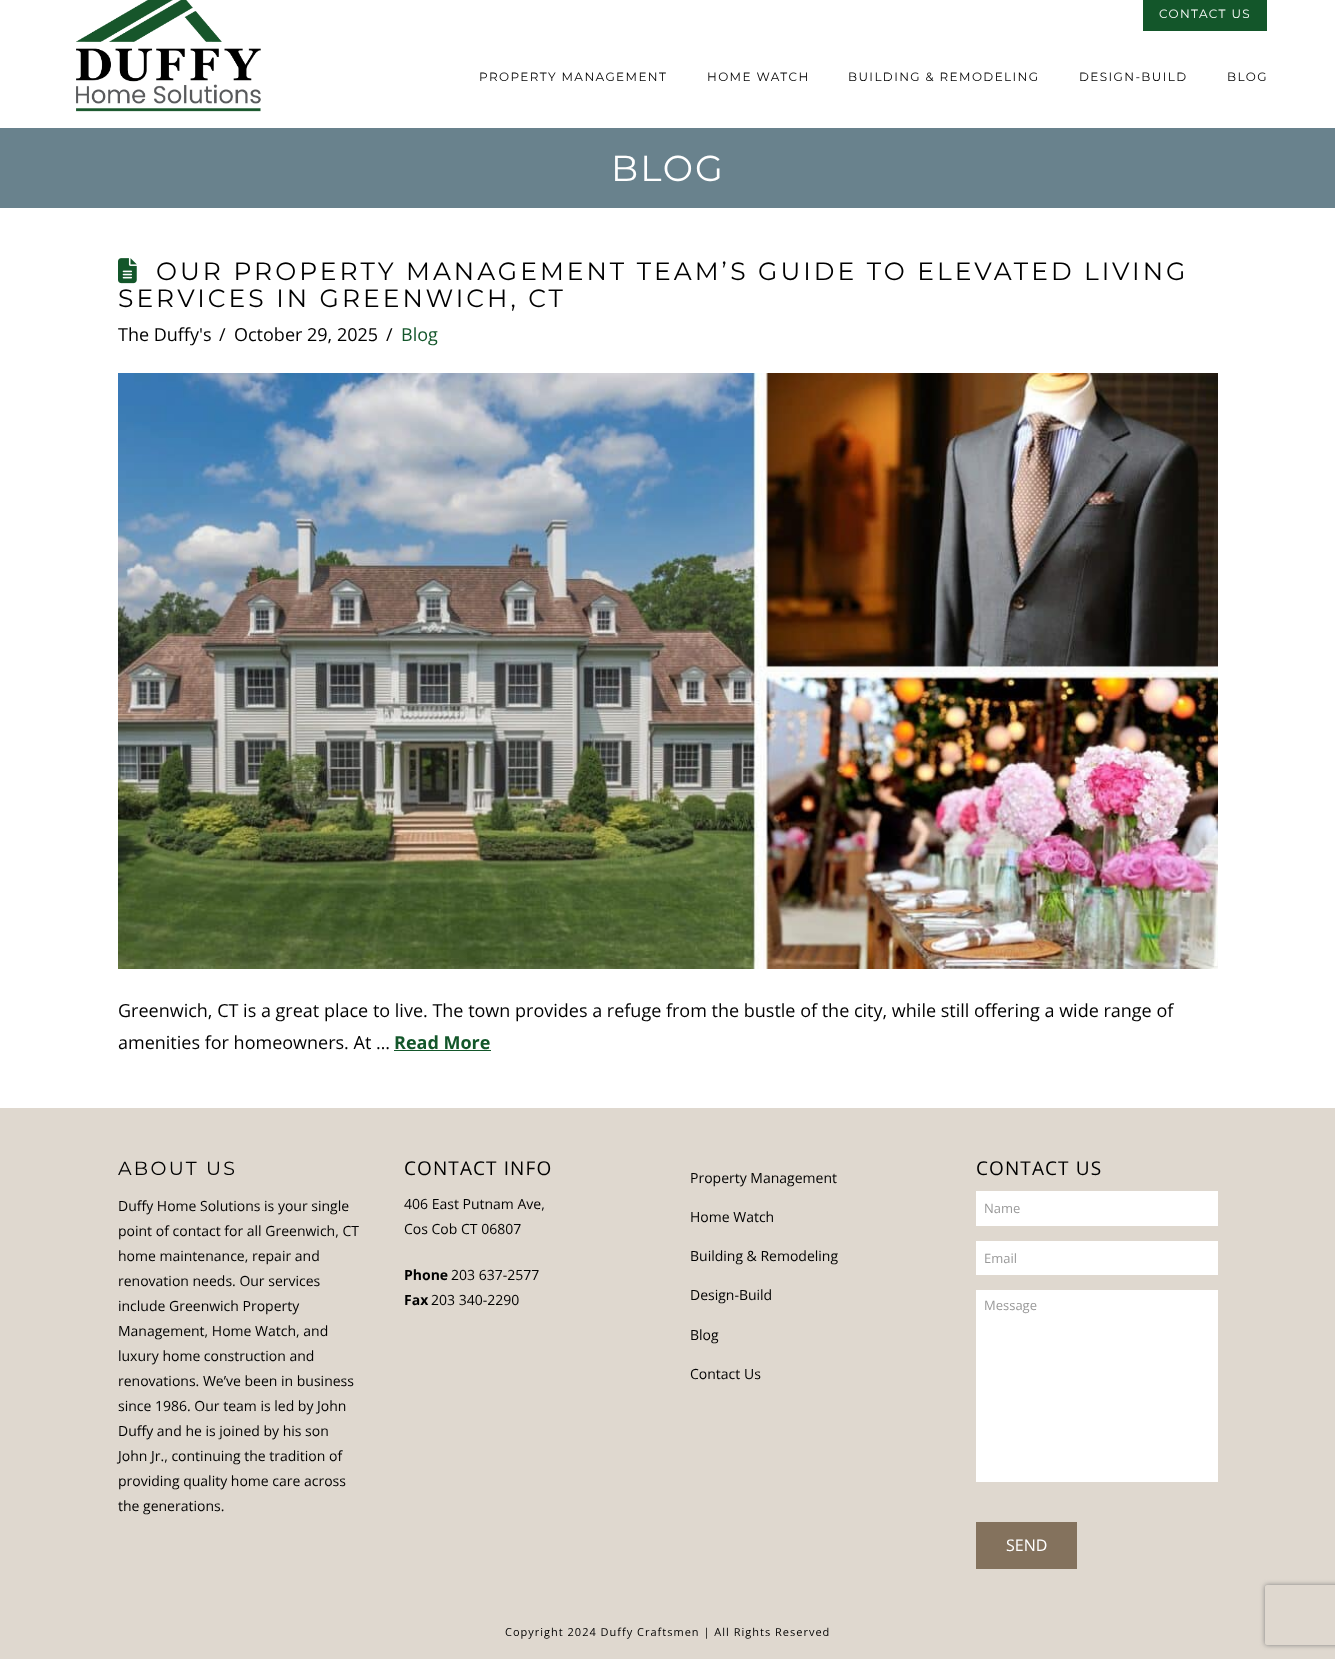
(async () => {
const canvas = document.querySelector("canvas")
canvas.width = 1335
canvas.height = 1659
const c = canvas.getContext("2d")
c.miterLimit = 4
c.fontKerning = "normal"
function T(s,x,y){c.fillText(s,x,y)}
function R(x,y,w,h){c.fillRect(x,y,w,h)}
async function I(src,x,y,w,h){const img=new Image();img.src=src;await img.decode();c.drawImage(img,x,y,w,h)}
let path
c.fillStyle="#fff"
R(0,0,1335,1659)
await I("1.png",76,0,185,112)
c.fillStyle="#13562a"
R(1143,0,124,31)
c.letterSpacing="1.4px"
c.font="12px Montserrat"
c.fillStyle="#fff"
T("CONTACT US",1159,18)
c.fillStyle="#000"
T("PROPERTY MANAGEMENT",479,81)
T("HOME WATCH",707,81)
T("BUILDING & REMODELING",848,81)
T("DESIGN-BUILD",1079,81)
T("BLOG",1227,81)
c.fillStyle="#69828d"
R(0,128,1335,80)
c.letterSpacing="2px"
c.font="36px Montserrat"
c.fillStyle="#fff"
T("BLOG",611,181)
await I("2.png",118,258,19,26)
c.letterSpacing="3px"
c.font="25px Montserrat"
c.fillStyle="#000"
T("OUR PROPERTY MANAGEMENT TEAM’S GUIDE TO ELEVATED LIVING",156,280)
T("SERVICES IN GREENWICH, CT",118,307)
c.letterSpacing="0px"
c.font="18px Open Sans"
T("The Duffy's",118,341)
T("/",219,341)
T("October 29, 2025",234,341)
T("/",386,341)
c.fillStyle="#13562a"
T("Blog",401,341)
await I("3.png",118,373,1100,596)
c.fillStyle="#000"
T("Greenwich, CT is a great place to live. The town provides a refuge from the bustle of the city, while still offering a wide range of",118,1017)
T("amenities for homeowners. At …",118,1049)
c.font="bold 18px Open Sans"
c.fillStyle="#13562a"
T("Read More",394,1049)
R(394,1050,97,1)
c.fillStyle="#dfd8cf"
R(0,1108,1335,551)
c.letterSpacing="2.25px"
c.font="19px Montserrat"
c.fillStyle="#000"
T("ABOUT US",118,1175)
c.letterSpacing="0px"
c.font="14px Open Sans"
T("Duffy Home Solutions is your single",118,1211)
T("point of contact for all Greenwich, CT",118,1236)
T("home maintenance, repair and",118,1261)
T("renovation needs. Our services",118,1286)
T("include Greenwich Property",118,1311)
T("Management, Home Watch, and",118,1336)
T("luxury home construction and",118,1361)
T("renovations. We’ve been in business",118,1386)
T("since 1986. Our team is led by John",118,1411)
T("Duffy and he is joined by his son",118,1436)
T("John Jr., continuing the tradition of",118,1461)
T("providing quality home care across",118,1486)
T("the generations.",118,1511)
c.letterSpacing="1.1px"
c.font="19px Open Sans"
T("CONTACT INFO",404,1175)
c.letterSpacing="0px"
c.font="14px Open Sans"
T("406 East Putnam Ave,",404,1209)
T("Cos Cob CT 06807",404,1234)
c.font="bold 14px Open Sans"
T("Phone",404,1280)
c.font="14px Open Sans"
T("203 637-2577",451,1280)
c.font="bold 14px Open Sans"
T("Fax",404,1305)
c.font="14px Open Sans"
T("203 340-2290",431,1305)
T("Property Management",690,1183)
T("Home Watch",690,1222)
T("Building & Remodeling",690,1261)
T("Design-Build",690,1300)
T("Blog",690,1340)
T("Contact Us",690,1379)
c.letterSpacing="1.1px"
c.font="19px Open Sans"
T("CONTACT US",976,1175)
c.fillStyle="#fff"
R(976,1191,242,35)
c.letterSpacing="0px"
c.font="13px Open Sans"
c.fillStyle="#999"
T("Name",984,1213)
c.fillStyle="#fff"
R(976,1241,242,34)
c.fillStyle="#999"
T("Email",984,1263)
c.fillStyle="#fff"
R(976,1290,242,192)
c.fillStyle="#999"
T("Message",984,1310)
c.fillStyle="#84725d"
R(976,1522,101,47)
c.font="16px Open Sans"
c.fillStyle="#fff"
T("SEND",1006,1551)
c.letterSpacing="1px"
c.font="11px Open Sans"
c.fillStyle="#000"
T("Copyright 2024 Duffy Craftsmen | All Rights Reserved",505,1636)
c.save()
path = new Path2D("M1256 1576h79v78h-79zm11 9h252c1 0 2 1 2 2v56c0 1-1 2-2 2h-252c-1 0-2-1-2-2v-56c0-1 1-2 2-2z")
c.clip(path,"evenodd")
c.fillStyle="#808080"
c.filter="blur(2.5px)"
c.beginPath()
c.roundRect(1265,1585,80,60,2)
c.fill()
c.filter="none"
c.restore()
})()
